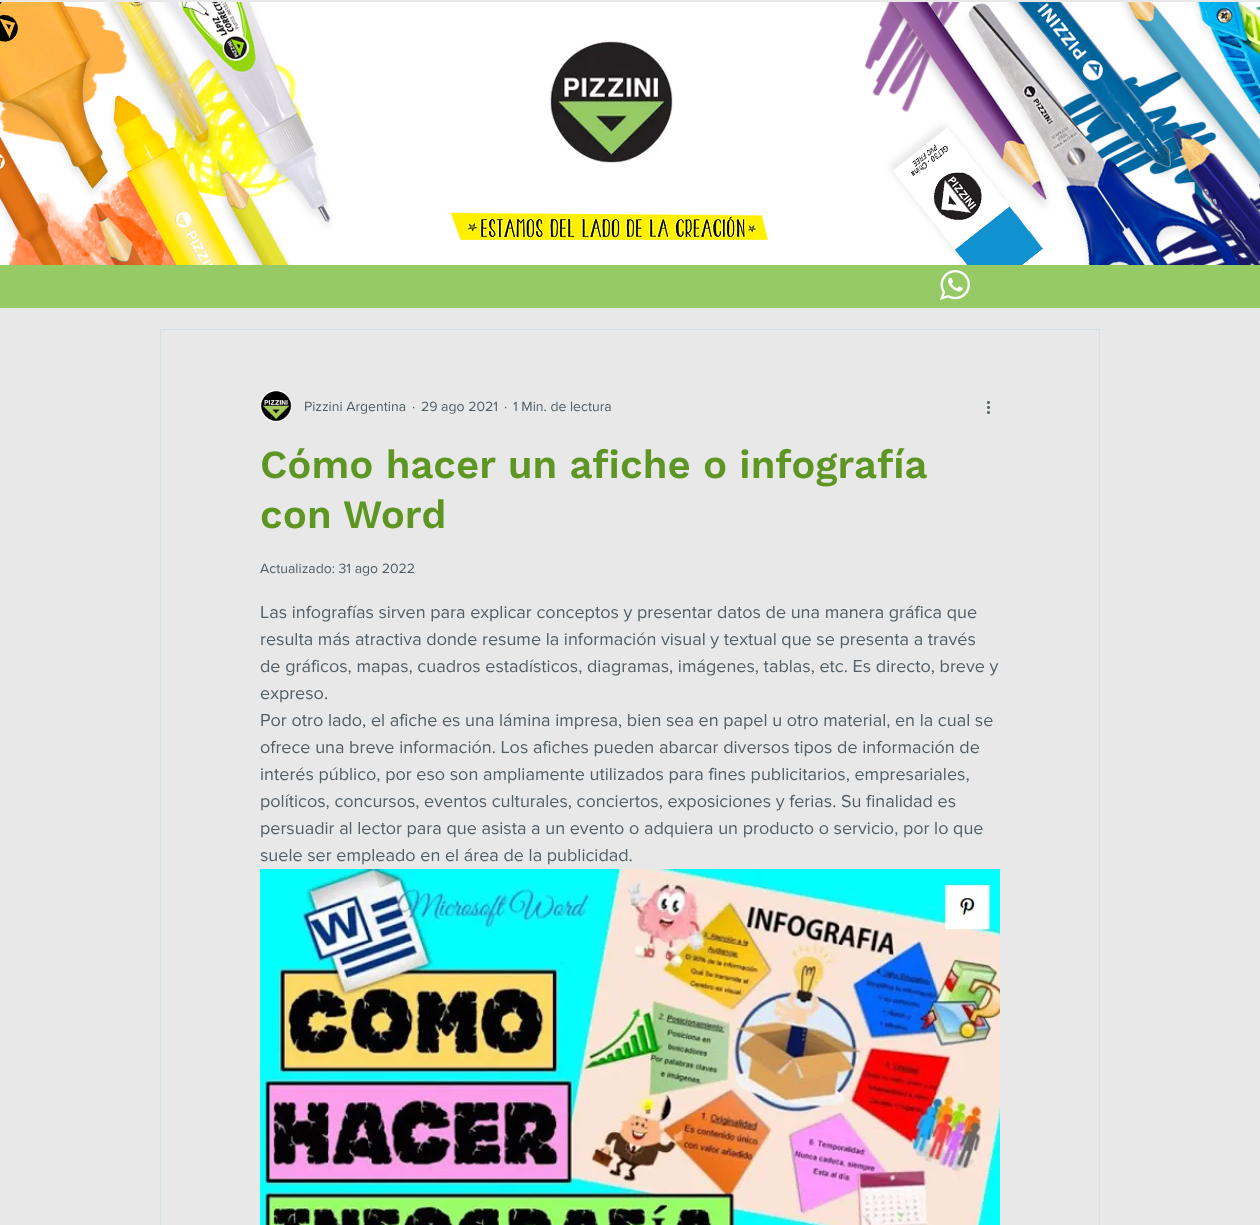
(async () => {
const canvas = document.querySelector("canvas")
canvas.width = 1260
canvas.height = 1225
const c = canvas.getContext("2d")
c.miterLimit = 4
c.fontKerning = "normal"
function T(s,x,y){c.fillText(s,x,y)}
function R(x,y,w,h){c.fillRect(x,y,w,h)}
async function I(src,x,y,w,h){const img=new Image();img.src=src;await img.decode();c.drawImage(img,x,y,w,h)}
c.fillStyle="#e8e8e8"
R(0,0,1260,1225)
await I("1.png",0,2,1260,263)
await I("2.png",549,39,124,124)
await I("3.png",450,212,319,29)
c.fillStyle="#95ca64"
R(0,265,1260,43)
await I("4.png",940,270,30,30)
c.strokeStyle="#d2e0e7"
c.strokeRect(160.5,329.5,939,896)
await I("5.png",260,390,32,32)
c.font="14px 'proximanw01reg'"
c.fillStyle="#515e65"
T("Pizzini Argentina",304,411)
T("·",412,411)
T("29 ago 2021",421,411)
T("·",504,411)
T("1 Min. de lectura",513,411)
await I("6.png",987,401,3,13)
c.font="600 40px Work Sans"
c.fillStyle="#5e9623"
T("Cómo hacer un afiche o infografía",260,478)
T("con Word",260,528)
c.font="14px 'proximanw01reg'"
c.fillStyle="#515e65"
T("Actualizado: 31 ago 2022",260,573)
c.font="18px 'proximanw01reg'"
T("Las infografías sirven para explicar conceptos y presentar datos de una manera gráfica que",260,618)
T("resulta más atractiva donde resume la información visual y textual que se presenta a través",260,645)
T("de gráficos, mapas, cuadros estadísticos, diagramas, imágenes, tablas, etc. Es directo, breve y",260,672)
T("expreso.",260,699)
T("Por otro lado, el afiche es una lámina impresa, bien sea en papel u otro material, en la cual se",260,726)
T("ofrece una breve información. Los afiches pueden abarcar diversos tipos de información de",260,753)
T("interés público, por eso son ampliamente utilizados para fines publicitarios, empresariales,",260,780)
T("políticos, concursos, eventos culturales, conciertos, exposiciones y ferias. Su finalidad es",260,807)
T("persuadir al lector para que asista a un evento o adquiera un producto o servicio, por lo que",260,834)
T("suele ser empleado en el área de la publicidad.",260,861)
await I("7.png",260,869,740,356)
})()
